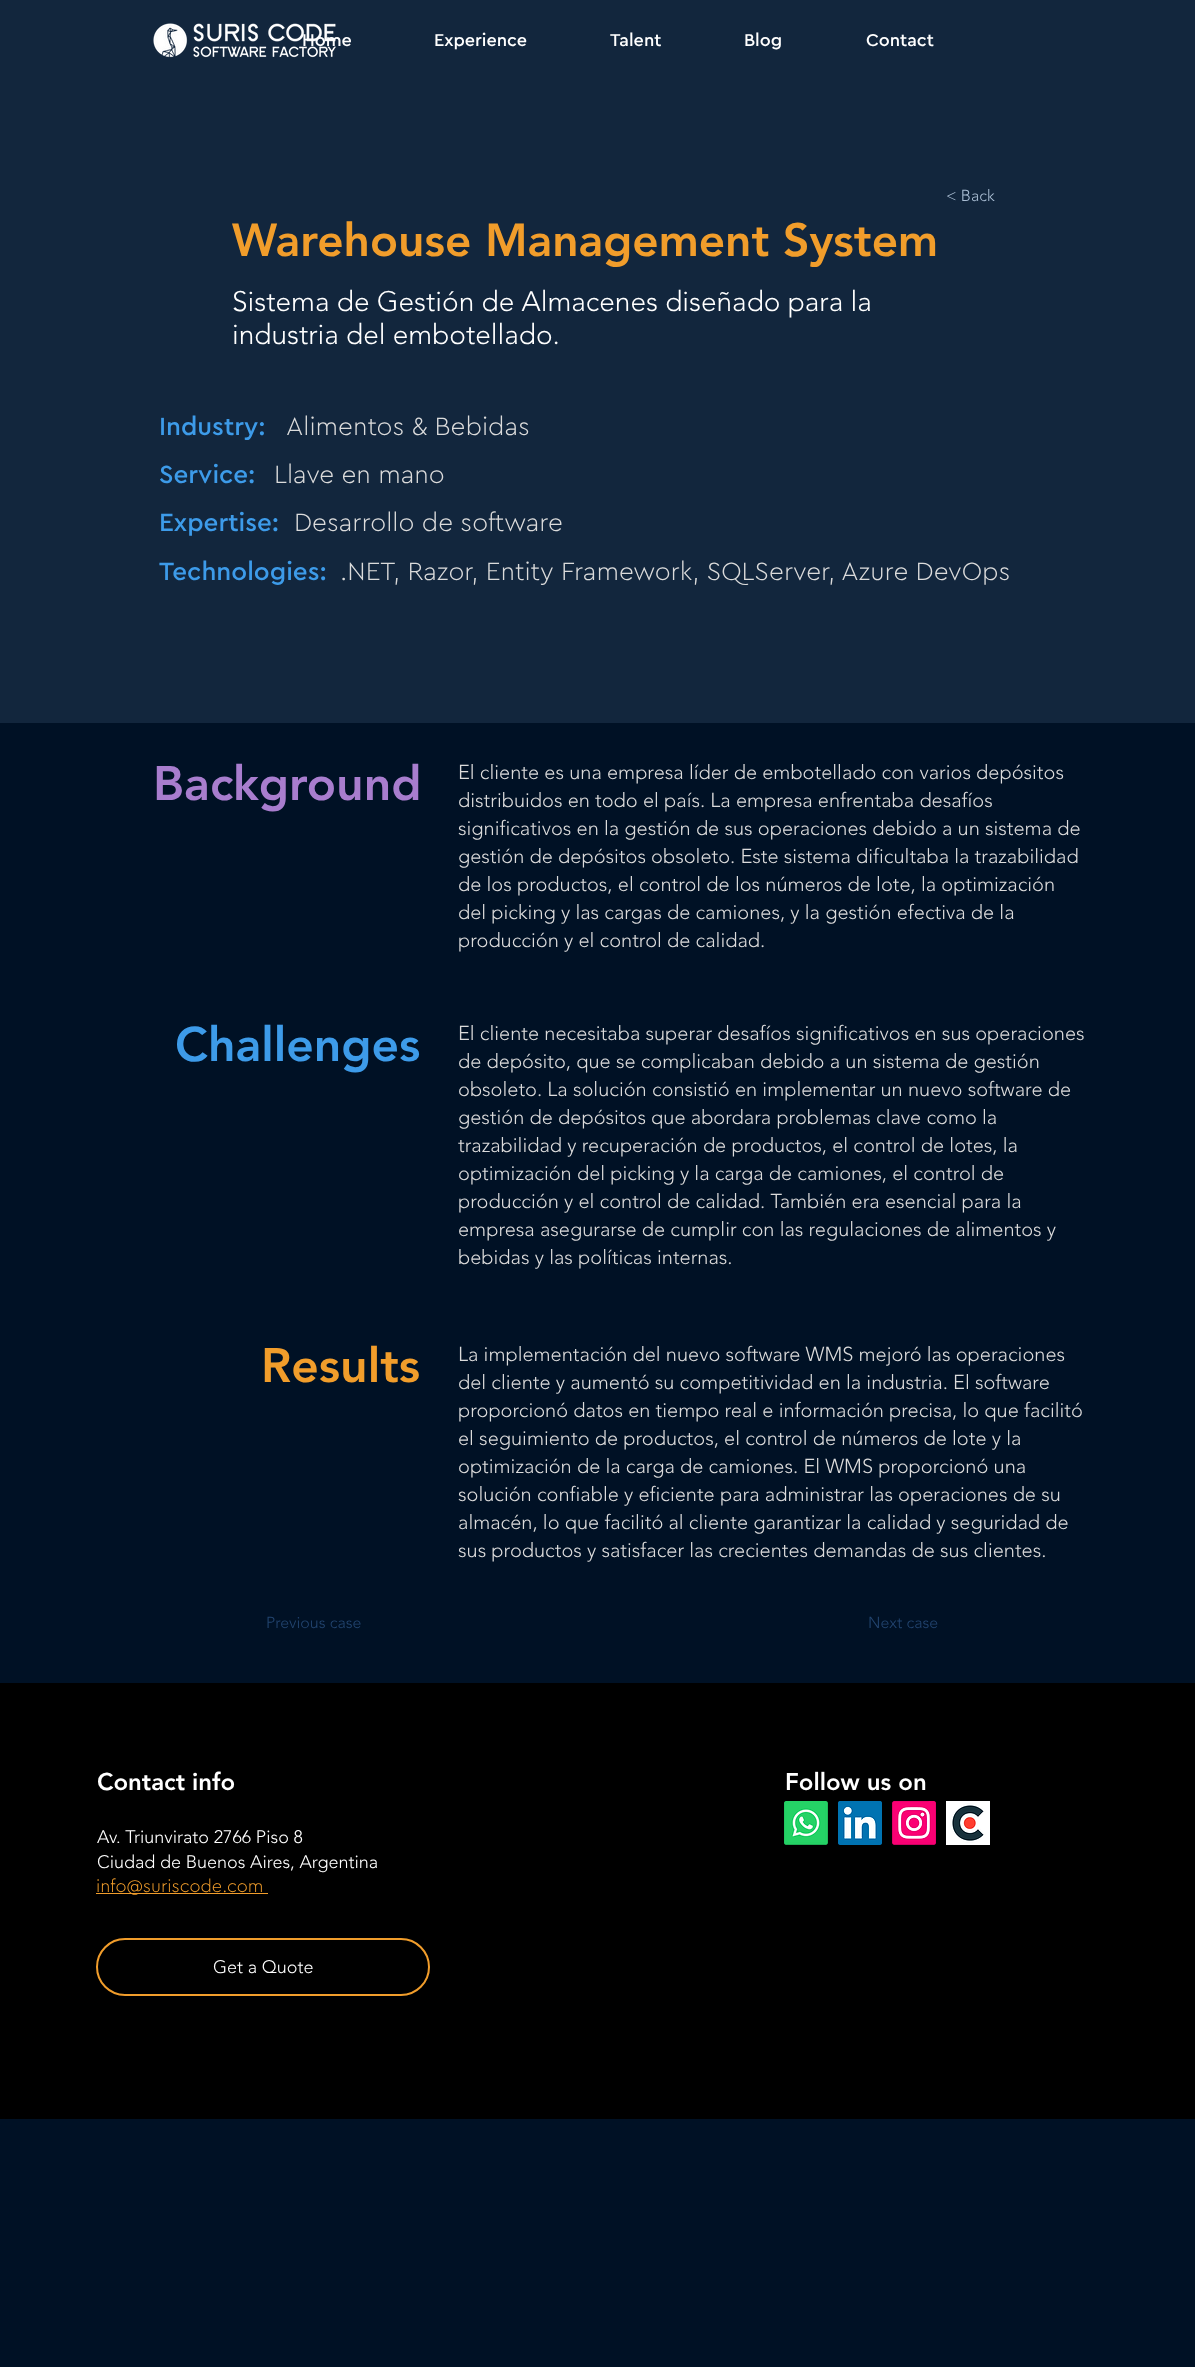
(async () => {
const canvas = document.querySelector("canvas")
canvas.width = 1195
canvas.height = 2367
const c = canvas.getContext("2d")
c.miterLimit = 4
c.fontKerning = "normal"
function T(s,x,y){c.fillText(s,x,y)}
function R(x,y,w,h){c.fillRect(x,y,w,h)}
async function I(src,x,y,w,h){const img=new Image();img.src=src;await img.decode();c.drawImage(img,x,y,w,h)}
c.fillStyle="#001125"
R(0,0,1195,2367)
c.fillStyle="#12263d"
R(0,0,1195,723)
await I("1.png",153,23,183,35)
c.font="500 18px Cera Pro"
c.fillStyle="#fff"
T("Home",302,46)
T("Experience",434,46)
T("Talent",610,46)
T("Blog",744,46)
T("Contact",866,46)
c.font="300 16px 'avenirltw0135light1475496'"
c.fillStyle="#a9bdd3"
T("< Back",946,201)
c.font="900 46px 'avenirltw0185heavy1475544'"
c.fillStyle="#f19d2b"
T("Warehouse Management System",232,256)
c.font="300 28px 'avenirltw0135light1475496'"
c.fillStyle="#fff"
T("Sistema de Gestión de Almacenes diseñado para la",232,311)
T("industria del embotellado.",232,344)
c.font="500 26px Cera Pro"
c.fillStyle="#3d9be9"
T("Industry:",159,435)
c.font="300 26px Cera Pro"
c.fillStyle="#dbdbdb"
T("Alimentos & Bebidas",286,435)
c.font="500 26px Cera Pro"
c.fillStyle="#3d9be9"
T("Service:",159,483)
c.font="300 26px Cera Pro"
c.fillStyle="#dbdbdb"
T("Llave en mano",274,483)
c.font="500 26px Cera Pro"
c.fillStyle="#3d9be9"
T("Expertise:",159,531)
c.font="300 26px Cera Pro"
c.fillStyle="#dbdbdb"
T("Desarrollo de software",294,531)
c.font="500 26px Cera Pro"
c.fillStyle="#3d9be9"
T("Technologies:",159,580)
c.font="300 26px Cera Pro"
c.fillStyle="#dbdbdb"
T(".NET, Razor, Entity Framework, SQLServer, Azure DevOps",340,580)
c.font="900 48px 'avenirltw0185heavy1475544'"
c.fillStyle="#a87dce"
T("Background",153,800)
c.font="300 20px 'avenirltw0135light1475496'"
c.fillStyle="#dbdbdb"
T("El cliente es una empresa líder de embotellado con varios depósitos",458,779)
T("distribuidos en todo el país. La empresa enfrentaba desafíos",458,807)
T("significativos en la gestión de sus operaciones debido a un sistema de",458,835)
T("gestión de depósitos obsoleto. Este sistema dificultaba la trazabilidad",458,863)
T("de los productos, el control de los números de lote, la optimización",458,891)
T("del picking y las cargas de camiones, y la gestión efectiva de la",458,919)
T("producción y el control de calidad.",458,947)
c.font="900 48px 'avenirltw0185heavy1475544'"
c.fillStyle="#3d9be9"
T("Challenges",175,1061)
c.font="300 20px 'avenirltw0135light1475496'"
c.fillStyle="#dbdbdb"
T("El cliente necesitaba superar desafíos significativos en sus operaciones",458,1040)
T("de depósito, que se complicaban debido a un sistema de gestión",458,1068)
T("obsoleto. La solución consistió en implementar un nuevo software de",458,1096)
T("gestión de depósitos que abordara problemas clave como la",458,1124)
T("trazabilidad y recuperación de productos, el control de lotes, la",458,1152)
T("optimización del picking y la carga de camiones, el control de",458,1180)
T("producción y el control de calidad. También era esencial para la",458,1208)
T("empresa asegurarse de cumplir con las regulaciones de alimentos y",458,1236)
T("bebidas y las políticas internas.",458,1264)
c.font="900 48px 'avenirltw0185heavy1475544'"
c.fillStyle="#f19d2b"
T("Results",261,1382)
c.font="300 20px 'avenirltw0135light1475496'"
c.fillStyle="#dbdbdb"
T("La implementación del nuevo software WMS mejoró las operaciones",458,1361)
T("del cliente y aumentó su competitividad en la industria. El software",458,1389)
T("proporcionó datos en tiempo real e información precisa, lo que facilitó",458,1417)
T("el seguimiento de productos, el control de números de lote y la",458,1445)
T("optimización de la carga de camiones. El WMS proporcionó una",458,1473)
T("solución confiable y eficiente para administrar las operaciones de su",458,1501)
T("almacén, lo que facilitó al cliente garantizar la calidad y seguridad de",458,1529)
T("sus productos y satisfacer las crecientes demandas de sus clientes.",458,1557)
c.font="300 16px 'avenirltw0135light1475496'"
c.fillStyle="#224570"
T("Previous case",266,1628)
T("Next case",868,1628)
c.fillStyle="#000"
R(0,1683,1195,436)
c.font="900 24px 'avenirltw0185heavy1475544'"
c.fillStyle="#fff"
T("Contact info",97,1790)
c.font="300 18px 'avenirltw0135light1475496'"
T("Av. Triunvirato 2766 Piso 8",97,1843)
T("Ciudad de Buenos Aires, Argentina",97,1868)
c.fillStyle="#f19d2b"
R(96,1893,172,1)
c.font="300 18px Cera Pro"
T("info@suriscode.com",96,1892)
c.beginPath()
c.roundRect(97,1939,332,56,28)
c.strokeStyle="#f19d2b"
c.lineWidth=2
c.stroke()
c.font="300 18px 'avenirltw0135light1475496'"
c.fillStyle="#fff"
T("Get a Quote",213,1973)
c.font="900 24px 'avenirltw0185heavy1475544'"
T("Follow us on",785,1790)
await I("2.png",784,1801,44,44)
await I("3.png",838,1801,44,44)
await I("4.png",892,1801,44,44)
await I("5.png",946,1801,44,44)
})()
